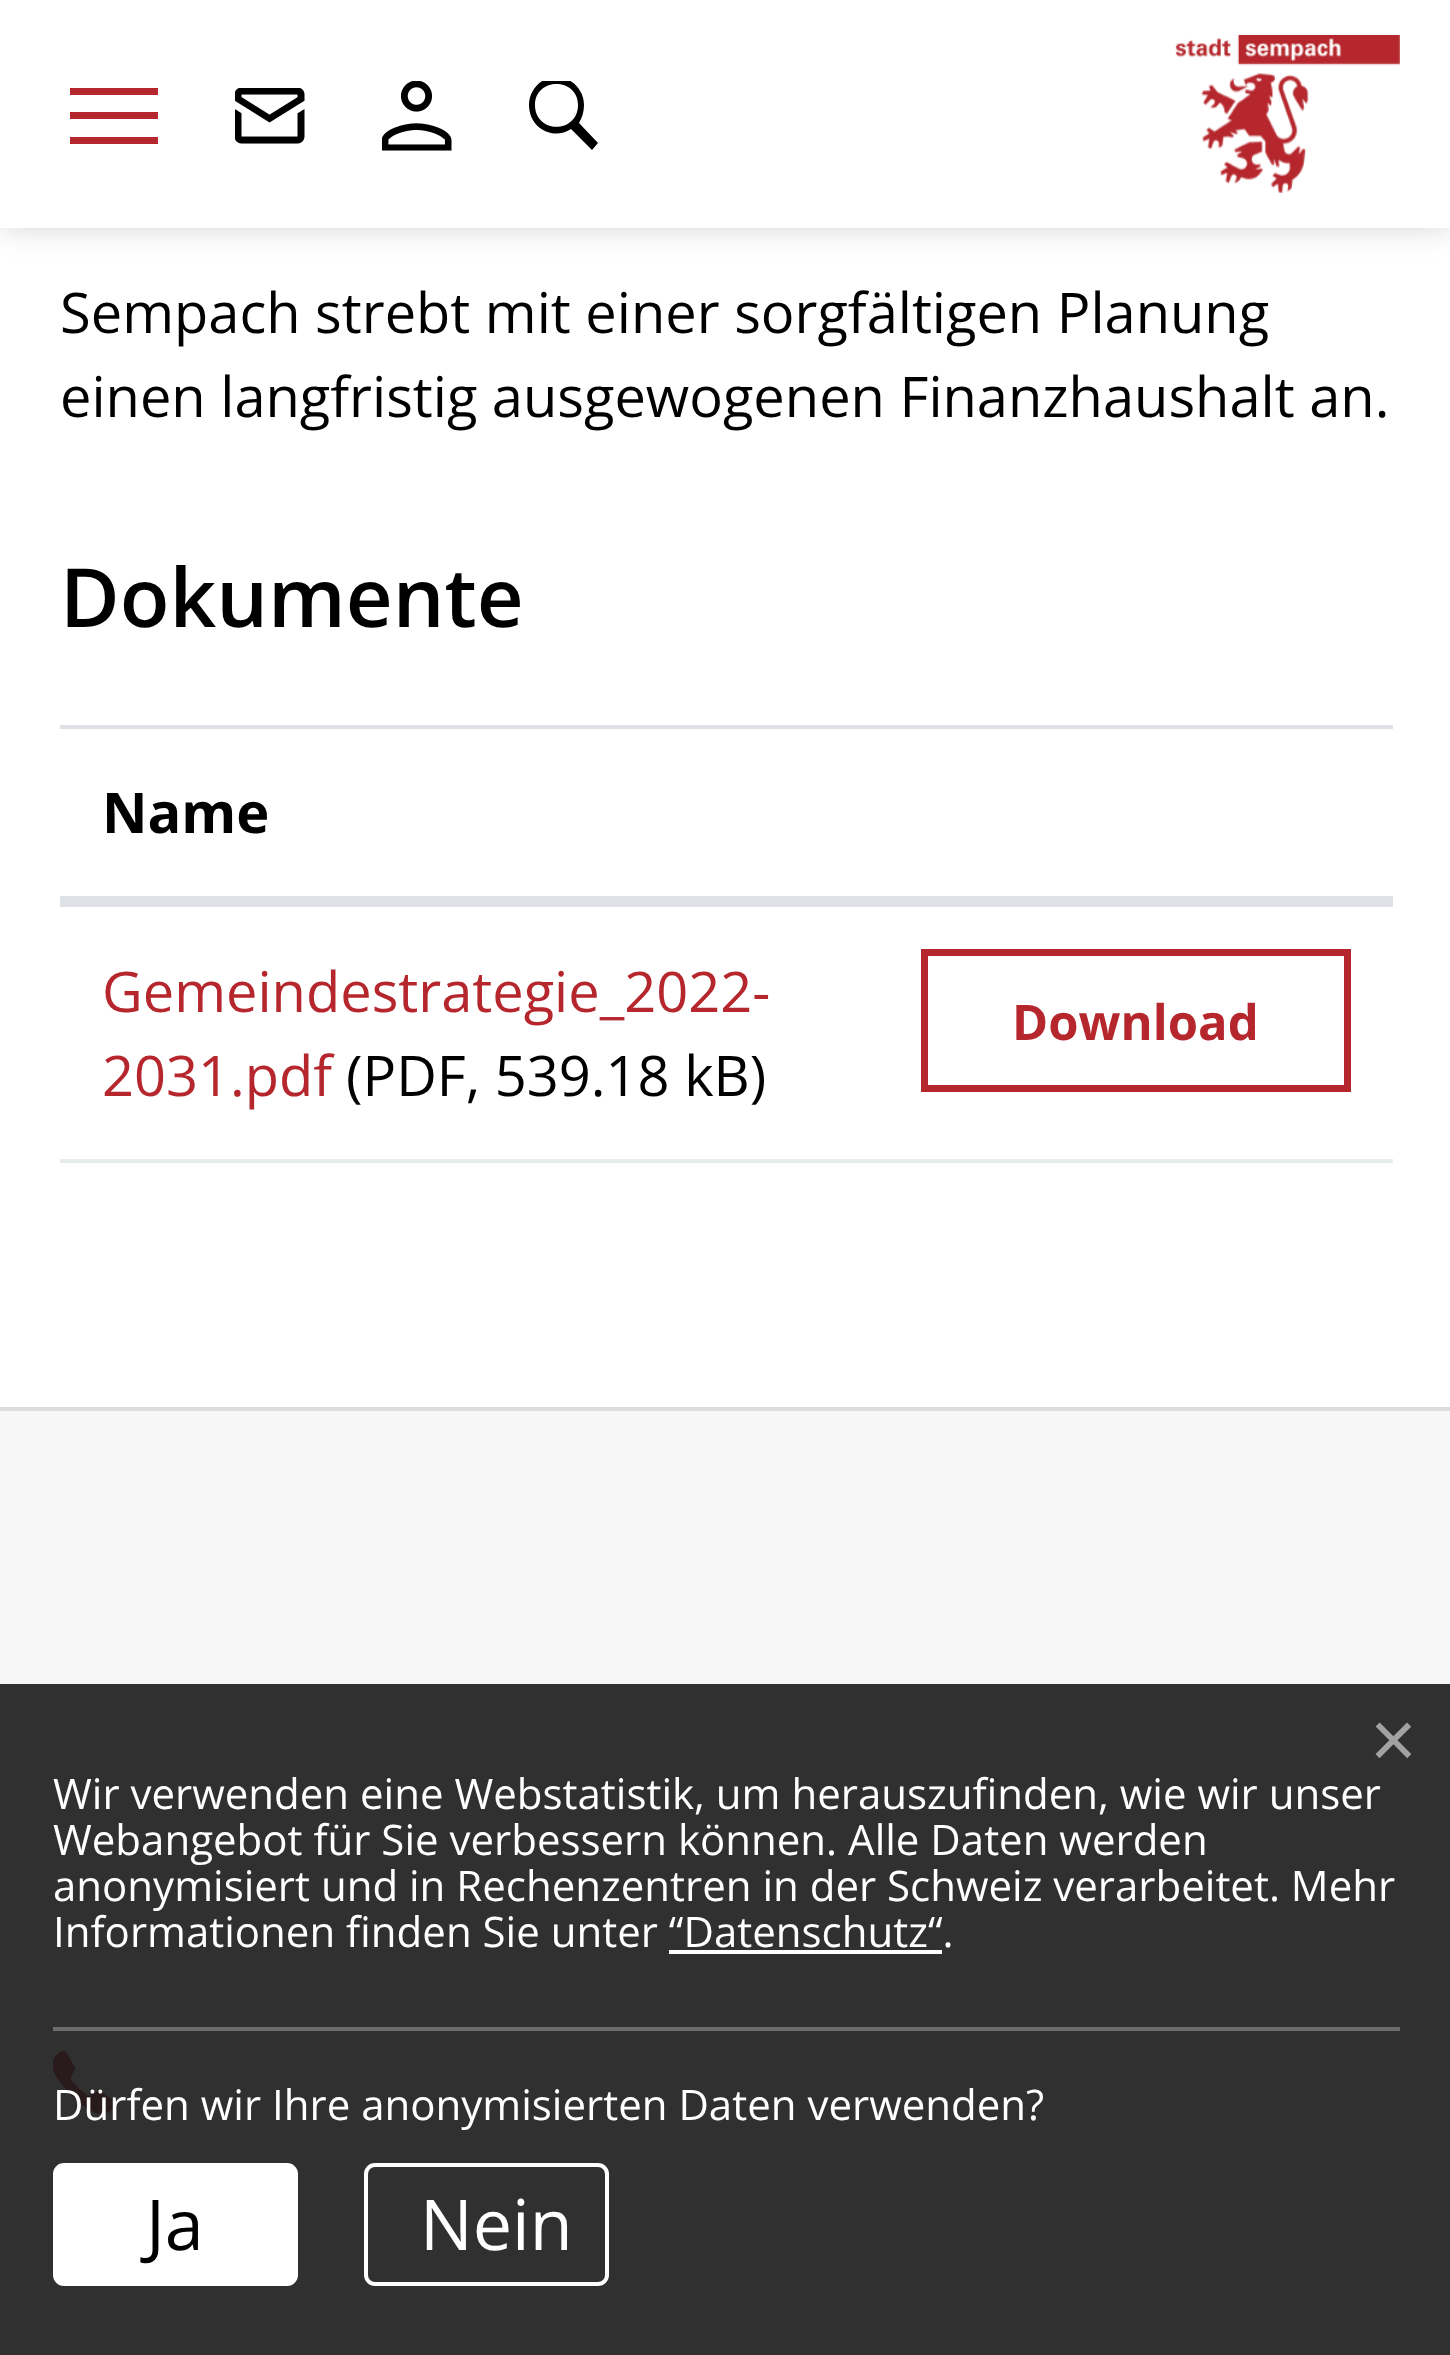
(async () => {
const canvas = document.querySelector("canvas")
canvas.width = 1450
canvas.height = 2355
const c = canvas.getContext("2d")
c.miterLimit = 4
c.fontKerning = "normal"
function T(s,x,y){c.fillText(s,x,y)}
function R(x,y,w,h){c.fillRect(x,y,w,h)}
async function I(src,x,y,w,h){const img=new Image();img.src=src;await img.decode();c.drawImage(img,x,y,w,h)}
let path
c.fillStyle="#fff"
R(0,0,1450,2355)
c.fillStyle="#00000040"
c.filter="blur(17.5px)"
c.beginPath()
c.rect(0,-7,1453,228)
c.fill()
c.filter="none"
c.fillStyle="#fff"
R(0,0,1450,228)
c.fillStyle="#b5272d"
R(70,88,88,7)
R(70,112,88,7)
R(70,137,88,7)
await I("1.png",235,88,70,56)
await I("2.png",382,81,70,70)
c.save()
c.beginPath()
c.rect(529,81,70,70)
c.clip()
c.fillStyle="#000"
path = new Path2D("M529 105c0-15 12-28 27-28c16 0 28 13 28 28c0 7-2 13-5 18l19 20l-6 7l-21-21c-18 12-42-1-42-24zm49 0c0-28-43-28-43 0c0 29 43 29 43 0z")
c.fill(path,"evenodd")
c.restore()
await I("3.png",1175,35,225,158)
c.font="56px Open Sans"
c.fillStyle="#000"
T("Sempach strebt mit einer sorgfältigen Planung",60,333)
T("einen langfristig ausgewogenen Finanzhaushalt an.",60,417)
c.font="600 81.5px Open Sans"
T("Dokumente",60,627)
c.fillStyle="#e6ecee"
R(60,1159,1333,4)
c.fillStyle="#dee2e6"
R(60,725,1333,4)
R(60,896,1333,7)
c.font="bold 56px Open Sans"
c.fillStyle="#000"
T("Name",102,833)
c.fillStyle="#dee2e6"
R(60,903,1333,4)
c.font="56px Open Sans"
c.fillStyle="#b5272d"
T("Gemeindestrategie_2022-",102,1012)
T("2031.pdf",102,1096)
c.fillStyle="#000"
T("(PDF, 539.18 kB)",346,1096)
c.strokeStyle="#b5272d"
c.lineWidth=7
c.strokeRect(924.5,952.5,423,136)
c.font="bold 49px Open Sans"
c.fillStyle="#b5272d"
T("Download",1012,1040)
c.fillStyle="#f7f7f7"
R(0,1411,1450,944)
c.fillStyle="#dcdcdc"
R(0,1407,1450,4)
await I("4.png",53,2051,63,63)
c.fillStyle="#191919e6"
R(0,1684,1450,671)
c.font="80px Liberation Sans"
c.fillStyle="#a2a2a2"
T("×",1370,1767)
c.fillStyle="#6d6d6d"
R(53,2027,1347,4)
c.font="42px Open Sans"
c.fillStyle="#fff"
T("Wir verwenden eine Webstatistik, um herauszufinden, wie wir unser",53,1809)
T("Webangebot für Sie verbessern können. Alle Daten werden",53,1855)
T("anonymisiert und in Rechenzentren in der Schweiz verarbeitet. Mehr",53,1901)
T("Informationen finden Sie unter “Datenschutz“.",53,1947)
R(669,1950,273,4)
T("Dürfen wir Ihre anonymisierten Daten verwenden?",53,2120)
c.beginPath()
c.roundRect(55,2165,241,119,9)
c.fill()
c.strokeStyle="#fff"
c.lineWidth=4
c.stroke()
c.font="70px Open Sans"
c.fillStyle="#000"
T("Ja",146,2250)
c.beginPath()
c.roundRect(366,2165,241,119,9)
c.stroke()
c.fillStyle="#fff"
T("Nein",420,2250)
})()
